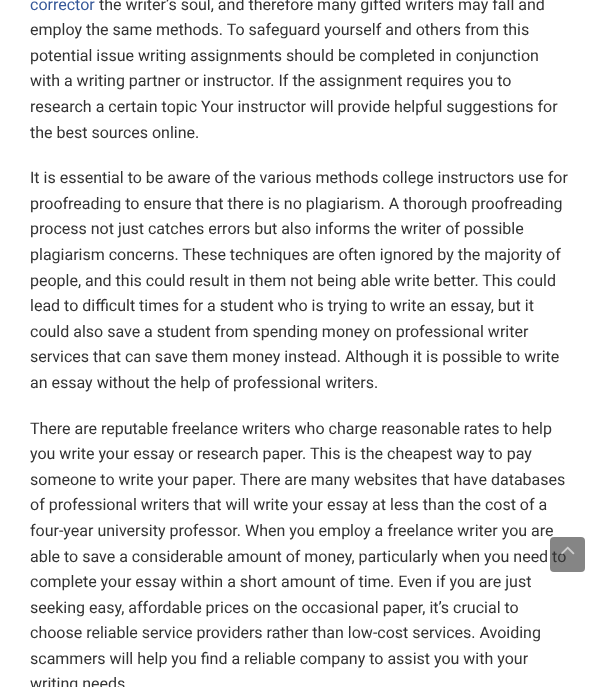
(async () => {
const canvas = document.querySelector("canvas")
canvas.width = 600
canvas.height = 687
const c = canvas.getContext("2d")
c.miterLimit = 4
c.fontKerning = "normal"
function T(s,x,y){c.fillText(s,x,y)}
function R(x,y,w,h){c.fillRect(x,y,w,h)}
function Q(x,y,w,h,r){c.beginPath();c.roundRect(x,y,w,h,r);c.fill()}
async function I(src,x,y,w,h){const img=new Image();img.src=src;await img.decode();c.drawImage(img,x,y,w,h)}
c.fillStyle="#fff"
R(0,0,600,687)
c.font="16px Roboto"
c.fillStyle="#365899"
T("corrector",30,10)
c.fillStyle="#333"
T("the writer’s soul, and therefore many gifted writers may fall and",99,10)
T("employ the same methods. To safeguard yourself and others from this",30,35)
T("potential issue writing assignments should be completed in conjunction",30,61)
T("with a writing partner or instructor. If the assignment requires you to",30,86)
T("research a certain topic Your instructor will provide helpful suggestions for",30,112)
T("the best sources online.",30,138)
T("It is essential to be aware of the various methods college instructors use for",30,183)
T("proofreading to ensure that there is no plagiarism. A thorough proofreading",30,209)
T("process not just catches errors but also informs the writer of possible",30,234)
T("plagiarism concerns. These techniques are often ignored by the majority of",30,260)
T("people, and this could result in them not being able write better. This could",30,286)
T("lead to difficult times for a student who is trying to write an essay, but it",30,311)
T("could also save a student from spending money on professional writer",30,337)
T("services that can save them money instead. Although it is possible to write",30,362)
T("an essay without the help of professional writers.",30,388)
T("There are reputable freelance writers who charge reasonable rates to help",30,434)
T("you write your essay or research paper. This is the cheapest way to pay",30,459)
T("someone to write your paper. There are many websites that have databases",30,485)
T("of professional writers that will write your essay at less than the cost of a",30,510)
T("four-year university professor. When you employ a freelance writer you are",30,536)
T("able to save a considerable amount of money, particularly when you need to",30,562)
T("complete your essay within a short amount of time. Even if you are just",30,587)
T("seeking easy, affordable prices on the occasional paper, it’s crucial to",30,613)
T("choose reliable service providers rather than low-cost services. Avoiding",30,638)
T("scammers will help you find a reliable company to assist you with your",30,664)
T("writing needs",30,689)
c.fillStyle="#33333399"
Q(550,537,35,35,4)
await I("1.png",561,546,14,9)
})()
